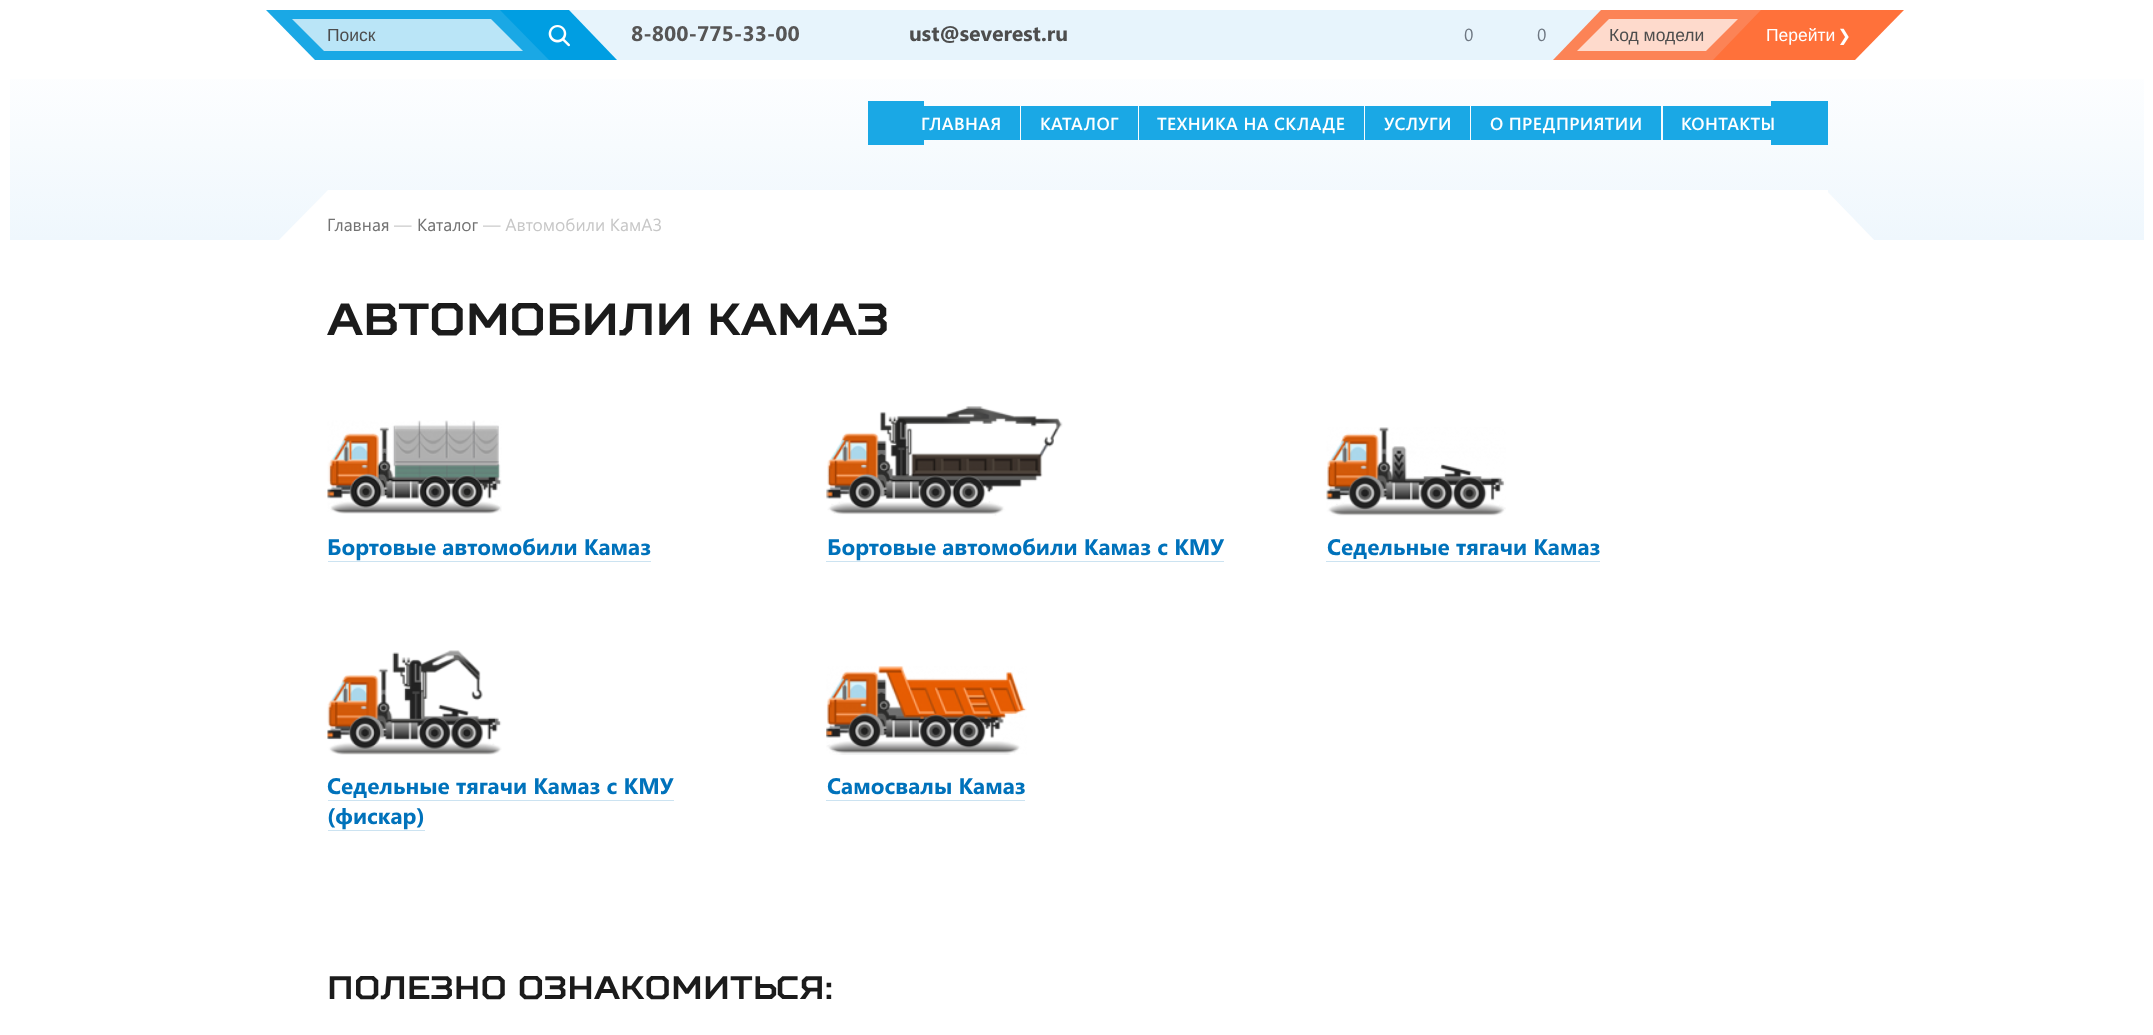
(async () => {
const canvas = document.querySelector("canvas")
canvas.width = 2153
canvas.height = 1035
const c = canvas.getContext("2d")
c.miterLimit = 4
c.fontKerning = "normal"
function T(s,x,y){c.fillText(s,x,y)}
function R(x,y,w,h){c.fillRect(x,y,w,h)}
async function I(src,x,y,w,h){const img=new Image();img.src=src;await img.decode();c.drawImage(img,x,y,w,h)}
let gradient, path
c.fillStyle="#fff"
R(0,0,2153,1035)
gradient = c.createLinearGradient(1077,240,1077,10)
gradient.addColorStop(0,"#eff7fd")
gradient.addColorStop(.83,"#fff")
c.fillStyle = gradient
R(10,79,2134,161)
c.fillStyle="#e7f4fc"
R(569,10,1032,50)
c.fillStyle="#1aa8e5"
path = new Path2D("M266 10h238l48 50h-237z")
c.fill(path)
c.fillStyle="#bae5f7"
path = new Path2D("M292 19h199l32 32h-199z")
c.fill(path)
c.fillStyle="#009ee2"
path = new Path2D("M500 10h69l48 50h-68z")
c.fill(path)
await I("1.png",548,25,22,22)
c.font="17.5px Liberation Sans"
c.fillStyle="#4d4d4d"
T("Поиск",327,41)
c.font="bold 21.25px Segoe UI"
c.fillStyle="#565555"
T("8-800-775-33-00",631,41)
c.fillStyle="#4d4d4d"
T("ust@severest.ru",909,41)
c.font="17.5px Segoe UI"
c.fillStyle="#6e7782"
T("0",1464,41)
T("0",1537,41)
c.fillStyle="#fc8356"
path = new Path2D("M1601 10h211l-48 50h-211z")
c.fill(path)
c.fillStyle="#fedacc"
path = new Path2D("M1609 19h129l-32 32h-129z")
c.fill(path)
c.font="17.5px Liberation Sans"
c.fillStyle="#4d4d4d"
T("Код модели",1609,41)
c.fillStyle="#ff713a"
path = new Path2D("M1761 10h143l-49 50h-142z")
c.fill(path)
await I("2.png",1840,28,9,17)
c.fillStyle="#fff"
T("Перейти",1766,41)
c.fillStyle="#1aa8e5"
R(868,101,56,44)
R(924,106,96,34)
c.letterSpacing="0.4px"
c.font="600 17.5px Segoe UI"
c.fillStyle="#fff"
T("ГЛАВНАЯ",921,130)
c.fillStyle="#1aa8e5"
R(1021,106,117,34)
c.fillStyle="#fff"
T("КАТАЛОГ",1040,130)
c.fillStyle="#1aa8e5"
R(1139,106,225,34)
c.fillStyle="#fff"
T("ТЕХНИКА НА СКЛАДЕ",1157,130)
c.fillStyle="#1aa8e5"
R(1365,106,105,34)
c.fillStyle="#fff"
T("УСЛУГИ",1384,130)
c.fillStyle="#1aa8e5"
R(1471,106,190,34)
c.fillStyle="#fff"
T("О ПРЕДПРИЯТИИ",1490,130)
c.fillStyle="#1aa8e5"
R(1663,106,108,34)
R(1771,101,57,44)
c.fillStyle="#fff"
T("КОНТАКТЫ",1681,130)
R(329,190,1499,50)
c.save()
c.beginPath()
c.rect(10,190,2134,50)
c.clip()
path = new Path2D("M328 190h50l-55 56h-50z")
c.fill(path)
c.restore()
c.letterSpacing="0px"
c.font="17.5px Segoe UI"
c.fillStyle="#c7c7c7"
T("— Автомобили КамАЗ",483,231)
c.save()
c.beginPath()
c.rect(10,190,2134,50)
c.clip()
c.fillStyle="#fff"
path = new Path2D("M1776 190h50l54 56h-50z")
c.fill(path)
c.restore()
c.fillStyle="#737373"
T("Главная",327,231)
c.fillStyle="#c7c7c7"
T("—",394,231)
c.fillStyle="#737373"
T("Каталог",417,231)
c.font="bold 45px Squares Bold"
c.fillStyle="#1b1b1b"
T("АВТОМОБИЛИ КАМАЗ",327,335)
await I("3.png",327,420,175,94)
c.font="bold 22.5px Segoe UI"
c.fillStyle="#0072bb"
T("Бортовые автомобили Камаз",327,555)
c.fillStyle="#cce3f1"
R(328,561,323,1)
await I("4.png",826,406,237,110)
c.fillStyle="#0072bb"
T("Бортовые автомобили Камаз с КМУ",827,555)
c.fillStyle="#cce3f1"
R(826,561,398,1)
await I("5.png",1326,427,180,89)
c.fillStyle="#0072bb"
T("Седельные тягачи Камаз",1327,555)
c.fillStyle="#cce3f1"
R(1326,561,274,1)
await I("6.png",327,650,175,105)
c.fillStyle="#0072bb"
T("Седельные тягачи Камаз с КМУ",327,794)
c.fillStyle="#cce3f1"
R(328,800,346,1)
c.fillStyle="#0072bb"
T("(фискар)",327,824)
c.fillStyle="#cce3f1"
R(328,830,97,1)
await I("7.png",826,666,201,89)
c.fillStyle="#0072bb"
T("Самосвалы Камаз",827,794)
c.fillStyle="#cce3f1"
R(826,800,199,1)
c.font="bold 32.5px Squares Bold"
c.fillStyle="#1b1b1b"
T("Полезно ознакомиться:",327,999)
})()
